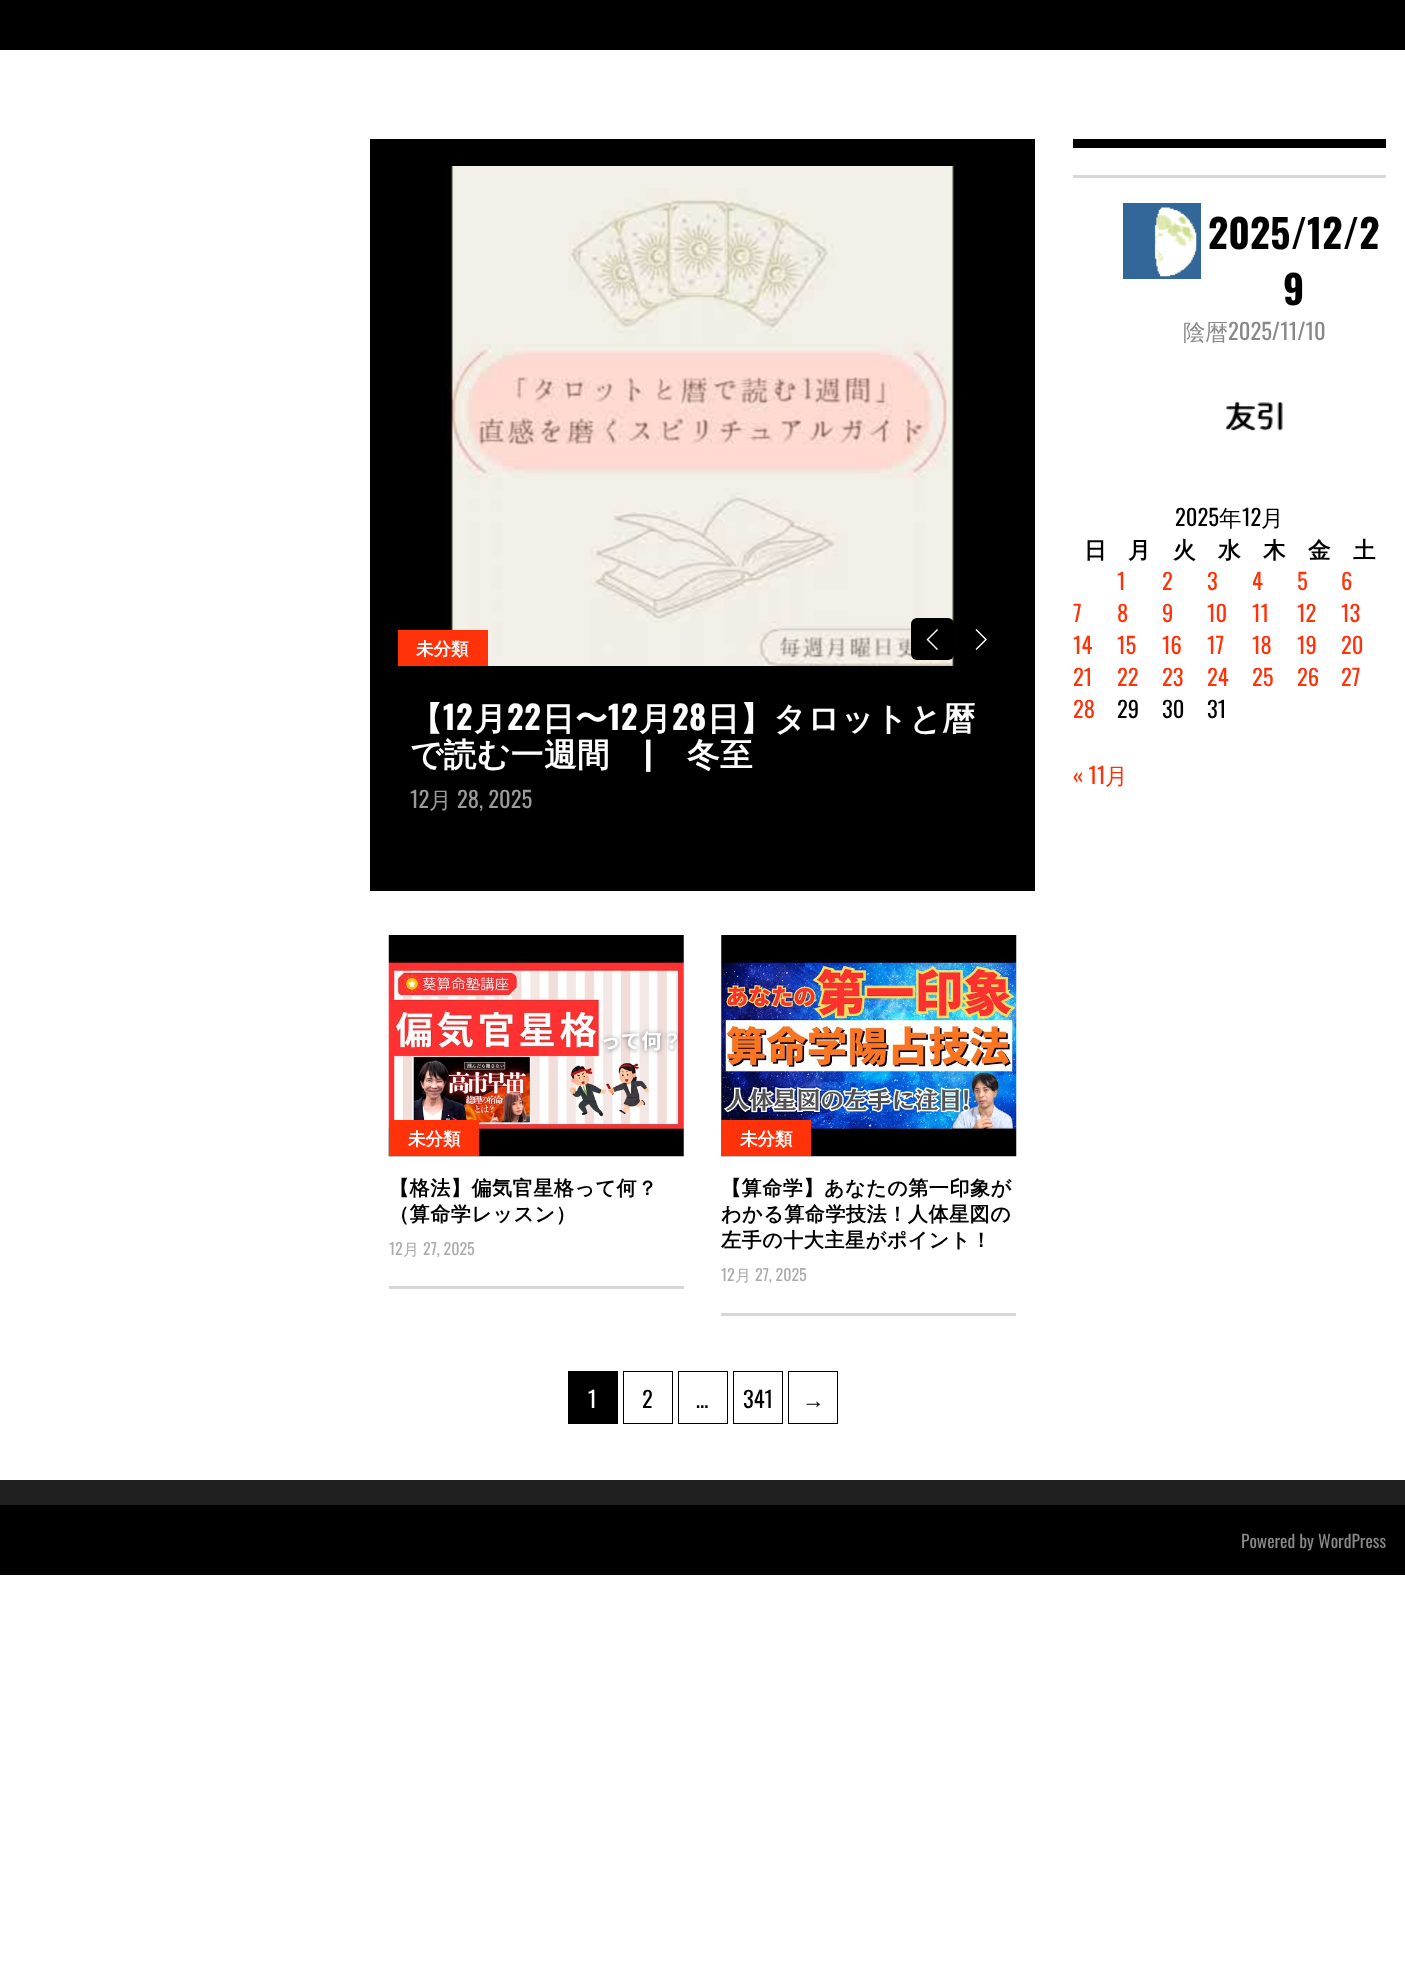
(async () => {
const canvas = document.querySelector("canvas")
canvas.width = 1405
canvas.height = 1980
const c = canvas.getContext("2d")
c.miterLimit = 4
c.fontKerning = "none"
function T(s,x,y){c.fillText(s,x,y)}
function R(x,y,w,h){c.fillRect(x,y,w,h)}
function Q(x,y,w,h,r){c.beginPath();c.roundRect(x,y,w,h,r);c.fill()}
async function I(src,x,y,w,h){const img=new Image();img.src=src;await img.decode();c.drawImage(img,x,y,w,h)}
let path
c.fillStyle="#fff"
R(0,0,1405,1980)
c.fillStyle="#000"
R(0,0,1405,50)
R(1073,139,313,9)
c.fillStyle="#d7d7d7"
R(1073,175,313,3)
c.fillStyle="#369"
R(1123,203,78,76)
await I("1.png",1154,207,43,70)
c.font="bold 39.5px Oswald"
c.fillStyle="#000"
T("2025/12/2",1208,249)
T("9",1283,305)
c.font="500 22.5px WenQuanYi Zen Hei"
c.fillStyle="#888"
T("陰暦",1183,340)
c.font="22.5px Oswald"
T("2025/11/10",1228,340)
await I("2.png",1225,401,58,30)
c.fillStyle="#000"
T("2025",1175,526)
c.font="500 22.5px WenQuanYi Zen Hei"
T("年",1219,526)
c.font="22.5px Oswald"
T("12",1242,526)
c.font="500 22.5px WenQuanYi Zen Hei"
T("月",1261,526)
c.font="bold 22.5px WenQuanYi Zen Hei"
T("日",1084,558)
T("月",1128,558)
T("火",1173,558)
T("水",1218,558)
T("木",1263,558)
T("金",1308,558)
T("土",1353,558)
c.font="22.5px Oswald"
c.fillStyle="#ff3209"
T("1",1117,590)
T("2",1162,590)
T("3",1207,590)
T("4",1252,590)
T("5",1297,590)
T("6",1341,590)
T("7",1073,622)
T("8",1117,622)
T("9",1162,622)
T("10",1207,622)
T("11",1252,622)
T("12",1297,622)
T("13",1341,622)
T("14",1073,654)
T("15",1117,654)
T("16",1162,654)
T("17",1207,654)
T("18",1252,654)
T("19",1297,654)
T("20",1341,654)
T("21",1073,686)
T("22",1117,686)
T("23",1162,686)
T("24",1207,686)
T("25",1252,686)
T("26",1297,686)
T("27",1341,686)
T("28",1073,718)
c.fillStyle="#000"
T("29",1117,718)
T("30",1162,718)
T("31",1207,718)
c.fillStyle="#ff3209"
T("« 11",1073,784)
c.font="500 22.5px WenQuanYi Zen Hei"
T("月",1105,784)
c.fillStyle="#000"
R(370,139,665,752)
await I("3.png",442,166,517,500)
Q(911,618,43,42,6)
c.fillStyle="#fff"
path = new Path2D("M926.5 639.5l10.5-10.5l1 1l-9.5 9.5l9.5 9.5l-1 1z")
c.fill(path)
path = new Path2D("M987 639.5l-10.5 10.5l-1-1l9.5-9.5l-9.5-9.5l1-1z")
c.fill(path)
c.fillStyle="#ff3209"
R(398,630,90,36)
c.font="bold 17.5px WenQuanYi Zen Hei"
c.fillStyle="#fff"
T("未分類",416,655)
c.letterSpacing="0.6px"
c.font="bold 32.5px WenQuanYi Zen Hei"
T("【",410,730)
c.font="bold 32.5px Oswald"
T("12",443,730)
c.font="bold 32.5px WenQuanYi Zen Hei"
T("月",474,730)
c.font="bold 32.5px Oswald"
T("22",507,730)
c.font="bold 32.5px WenQuanYi Zen Hei"
T("日〜",542,730)
c.font="bold 32.5px Oswald"
T("12",608,730)
c.font="bold 32.5px WenQuanYi Zen Hei"
T("月",639,730)
c.font="bold 32.5px Oswald"
T("28",672,730)
c.font="bold 32.5px WenQuanYi Zen Hei"
T("日】タロットと暦",707,730)
T("で読む一週間",410,766)
c.font="bold 32.5px Oswald"
T("|",644,766)
c.font="bold 32.5px WenQuanYi Zen Hei"
T("冬至",687,766)
c.letterSpacing="0px"
c.font="22.5px Oswald"
c.fillStyle="#9b9b9b"
T("12",410,808)
c.font="500 22.5px WenQuanYi Zen Hei"
T("月",429,808)
c.font="22.5px Oswald"
T("28, 2025",457,808)
c.fillStyle="#d7d7d7"
R(389,1286,295,3)
await I("4.png",388,935,296,222)
c.fillStyle="#ff3209"
R(389,1120,90,36)
c.font="bold 17.5px WenQuanYi Zen Hei"
c.fillStyle="#fff"
T("未分類",408,1145)
c.letterSpacing="0.6px"
c.font="bold 20px WenQuanYi Zen Hei"
c.fillStyle="#000"
T("【格法】偏気官星格って何？",389,1195)
T("（算命学レッスン）",389,1221)
c.letterSpacing="0px"
c.font="16px Oswald"
c.fillStyle="#ababab"
T("12",389,1255)
c.font="500 16px WenQuanYi Zen Hei"
T("月",403,1255)
c.font="16px Oswald"
T("27, 2025",423,1255)
c.fillStyle="#d7d7d7"
R(721,1313,295,3)
await I("5.png",721,935,296,222)
c.fillStyle="#ff3209"
R(721,1120,90,36)
c.font="bold 17.5px WenQuanYi Zen Hei"
c.fillStyle="#fff"
T("未分類",740,1145)
c.letterSpacing="0.6px"
c.font="bold 20px WenQuanYi Zen Hei"
c.fillStyle="#000"
T("【算命学】あなたの第一印象が",721,1195)
T("わかる算命学技法！人体星図の",721,1221)
T("左手の十大主星がポイント！",721,1247)
c.letterSpacing="0px"
c.font="16px Oswald"
c.fillStyle="#ababab"
T("12",721,1281)
c.font="500 16px WenQuanYi Zen Hei"
T("月",735,1281)
c.font="16px Oswald"
T("27, 2025",755,1281)
c.fillStyle="#000"
R(568,1371,50,53)
c.font="22.5px Oswald"
c.fillStyle="#fff"
T("1",588,1408)
c.strokeStyle="#000"
c.strokeRect(623.5,1371.5,49,52)
c.fillStyle="#000"
T("2",642,1408)
c.strokeRect(678.5,1371.5,49,52)
T("…",696,1408)
c.strokeRect(733.5,1371.5,49,52)
T("341",743,1408)
c.strokeRect(788.5,1371.5,49,52)
c.font="22.5px Liberation Sans"
T("→",802,1408)
c.fillStyle="#202020"
R(0,1480,1405,25)
c.fillStyle="#000"
R(0,1505,1405,70)
c.font="17.5px Oswald"
c.fillStyle="#888"
T("Powered by WordPress",1241,1548)
})()
